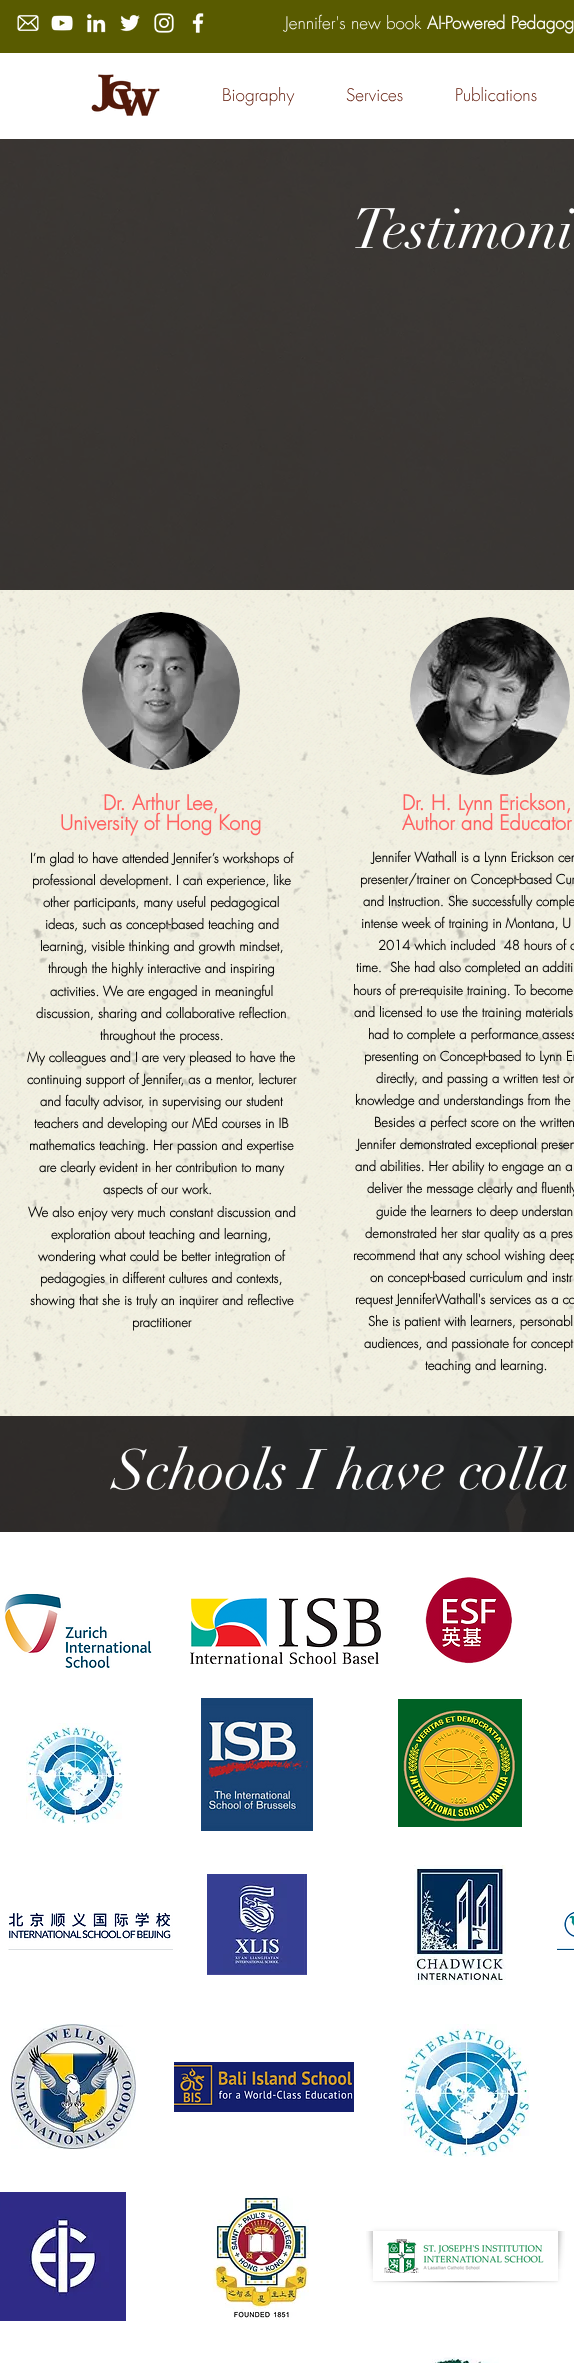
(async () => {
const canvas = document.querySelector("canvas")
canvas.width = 574
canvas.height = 2363
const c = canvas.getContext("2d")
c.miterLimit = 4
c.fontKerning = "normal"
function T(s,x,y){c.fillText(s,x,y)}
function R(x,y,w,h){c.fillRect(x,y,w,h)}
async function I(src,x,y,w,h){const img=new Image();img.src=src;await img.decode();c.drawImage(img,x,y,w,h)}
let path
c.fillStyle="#2f2e2e"
R(0,0,574,2363)
c.fillStyle="#595b00"
R(0,0,574,53)
await I("1.png",17,15,22,16)
await I("2.png",51,15,22,16)
await I("3.png",87,14,19,19)
await I("4.png",120,15,20,17)
await I("5.png",154,13,20,20)
await I("6.png",192,13,12,20)
c.font="300 17px futura"
c.fillStyle="#fff"
T("Jennifer's new book",285,29)
c.font="bold 17px futura"
T("AI-Powered Pedagog",427,29)
R(0,53,574,86)
await I("7.png",91,74,69,42)
c.font="300 17px futura"
c.fillStyle="#5c1201"
T("Biography",222,101)
T("Services",346,101)
T("Publications",455,101)
await I("31.png",0,139,574,1393)
c.font="56px didot"
c.fillStyle="#fff"
T("Testimoni",352,248)
c.fillStyle="#f2f0e1"
R(0,590,574,826)
await I("8.png",0,590,574,826)
c.fillStyle="#fff"
c.beginPath()
c.arc(161,691,79,0,7)
c.fill()
await I("9.png",82,612,158,158)
c.font="bold 20px futura"
c.fillStyle="#ff6161"
T("Dr. Arthur Lee,",103,810)
T("University of Hong Kong",60,830)
c.font="bold 13px futura"
c.fillStyle="#000"
T("I’m glad to have attended Jennifer’s workshops of",30,863)
T("professional development. I can experience, like",32,885)
T("other participants, many useful pedagogical",43,907)
T("ideas, such as concept-based teaching and",45,929)
T("learning, visible thinking and growth mindset,",40,951)
T("through the highly interactive and inspiring",48,973)
T("activities. We are engaged in meaningful",50,996)
T("discussion, sharing and collaborative reflection",36,1018)
T("throughout the process.",100,1040)
T("My colleagues and I are very pleased to have the",27,1062)
T("continuing support of Jennifer, as a mentor, lecturer",27,1084)
T("and faculty advisor, in supervising our student",40,1106)
T("teachers and developing our MEd courses in IB",34,1128)
T("mathematics teaching. Her passion and expertise",29,1150)
T("are clearly evident in her contribution to many",39,1172)
T("aspects of our work.",103,1194)
T("We also enjoy very much constant discussion and",28,1217)
T("exploration about teaching and learning,",51,1239)
T("wondering what could be better integration of",38,1261)
T("pedagogies in different cultures and contexts,",40,1283)
T("showing that she is truly an inquirer and reflective",30,1305)
T("practitioner",132,1327)
await I("10.png",410,617,160,158)
c.font="bold 20px futura"
c.fillStyle="#ff6161"
T("Dr. H. Lynn Erickson,",402,810)
T("Author and Educator",402,830)
c.font="bold 13px futura"
c.fillStyle="#000"
T("Jennifer Wathall is a Lynn Erickson cer",372,862)
T("presenter/trainer on Concept-based Cur",360,884)
T("and Instruction. She successfully comple",363,906)
T("intense week of training in Montana, U",361,928)
T("2014 which included  48 hours of c",378,950)
T("time.  She had also completed an additi",356,972)
T("hours of pre-requisite training. To become",353,995)
T("and licensed to use the training materials",354,1017)
T("had to complete a performance assess",368,1039)
T("presenting on Concept-based to Lynn Er",364,1061)
T("directly, and passing a written test on",376,1083)
T("knowledge and understandings from the",355,1105)
T("Besides a perfect score on the written",374,1127)
T("Jennifer demonstrated exceptional presen",357,1149)
T("and abilities. Her ability to engage an a",355,1171)
T("deliver the message clearly and fluently",367,1193)
T("guide the learners to deep understan",376,1216)
T("demonstrated her star quality as a pres",365,1238)
T("recommend that any school wishing deep",353,1260)
T("on concept-based curriculum and instr",370,1282)
T("request JenniferWathall's services as a co",355,1304)
T("She is patient with learners, personabl",368,1326)
T("audiences, and passionate for concept",364,1348)
T("teaching and learning.",425,1370)
c.font="56px didot"
c.fillStyle="#fff"
T("Schools I have colla",113,1489)
R(0,1532,574,831)
await I("11.png",4,1592,148,76)
await I("12.png",190,1598,191,66)
await I("13.png",425,1577,87,87)
await I("14.png",26,1723,97,101)
await I("15.png",201,1698,112,133)
await I("16.png",398,1699,124,128)
await I("17.png",8,1912,165,38)
await I("18.png",207,1874,100,101)
await I("19.png",414,1865,92,120)
await I("20.png",557,1912,17,38)
await I("21.png",11,2024,125,125)
await I("22.png",174,2062,180,50)
await I("23.png",401,2024,129,133)
await I("24.png",0,2192,126,129)
await I("25.png",212,2196,97,124)
c.save()
path = new Path2D("M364 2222h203v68h-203zm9 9h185v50h-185z")
c.clip(path,"evenodd")
c.fillStyle="#0000001a"
c.filter="blur(2.5px)"
c.beginPath()
c.rect(373,2231,185,50)
c.fill()
c.filter="none"
c.restore()
await I("26.png",384,2239,160,34)
await I("27.png",373,2281,185,2)
await I("28.png",366,2231,7,38)
await I("29.png",558,2231,7,38)
await I("30.png",432,2357,67,6)
})()
